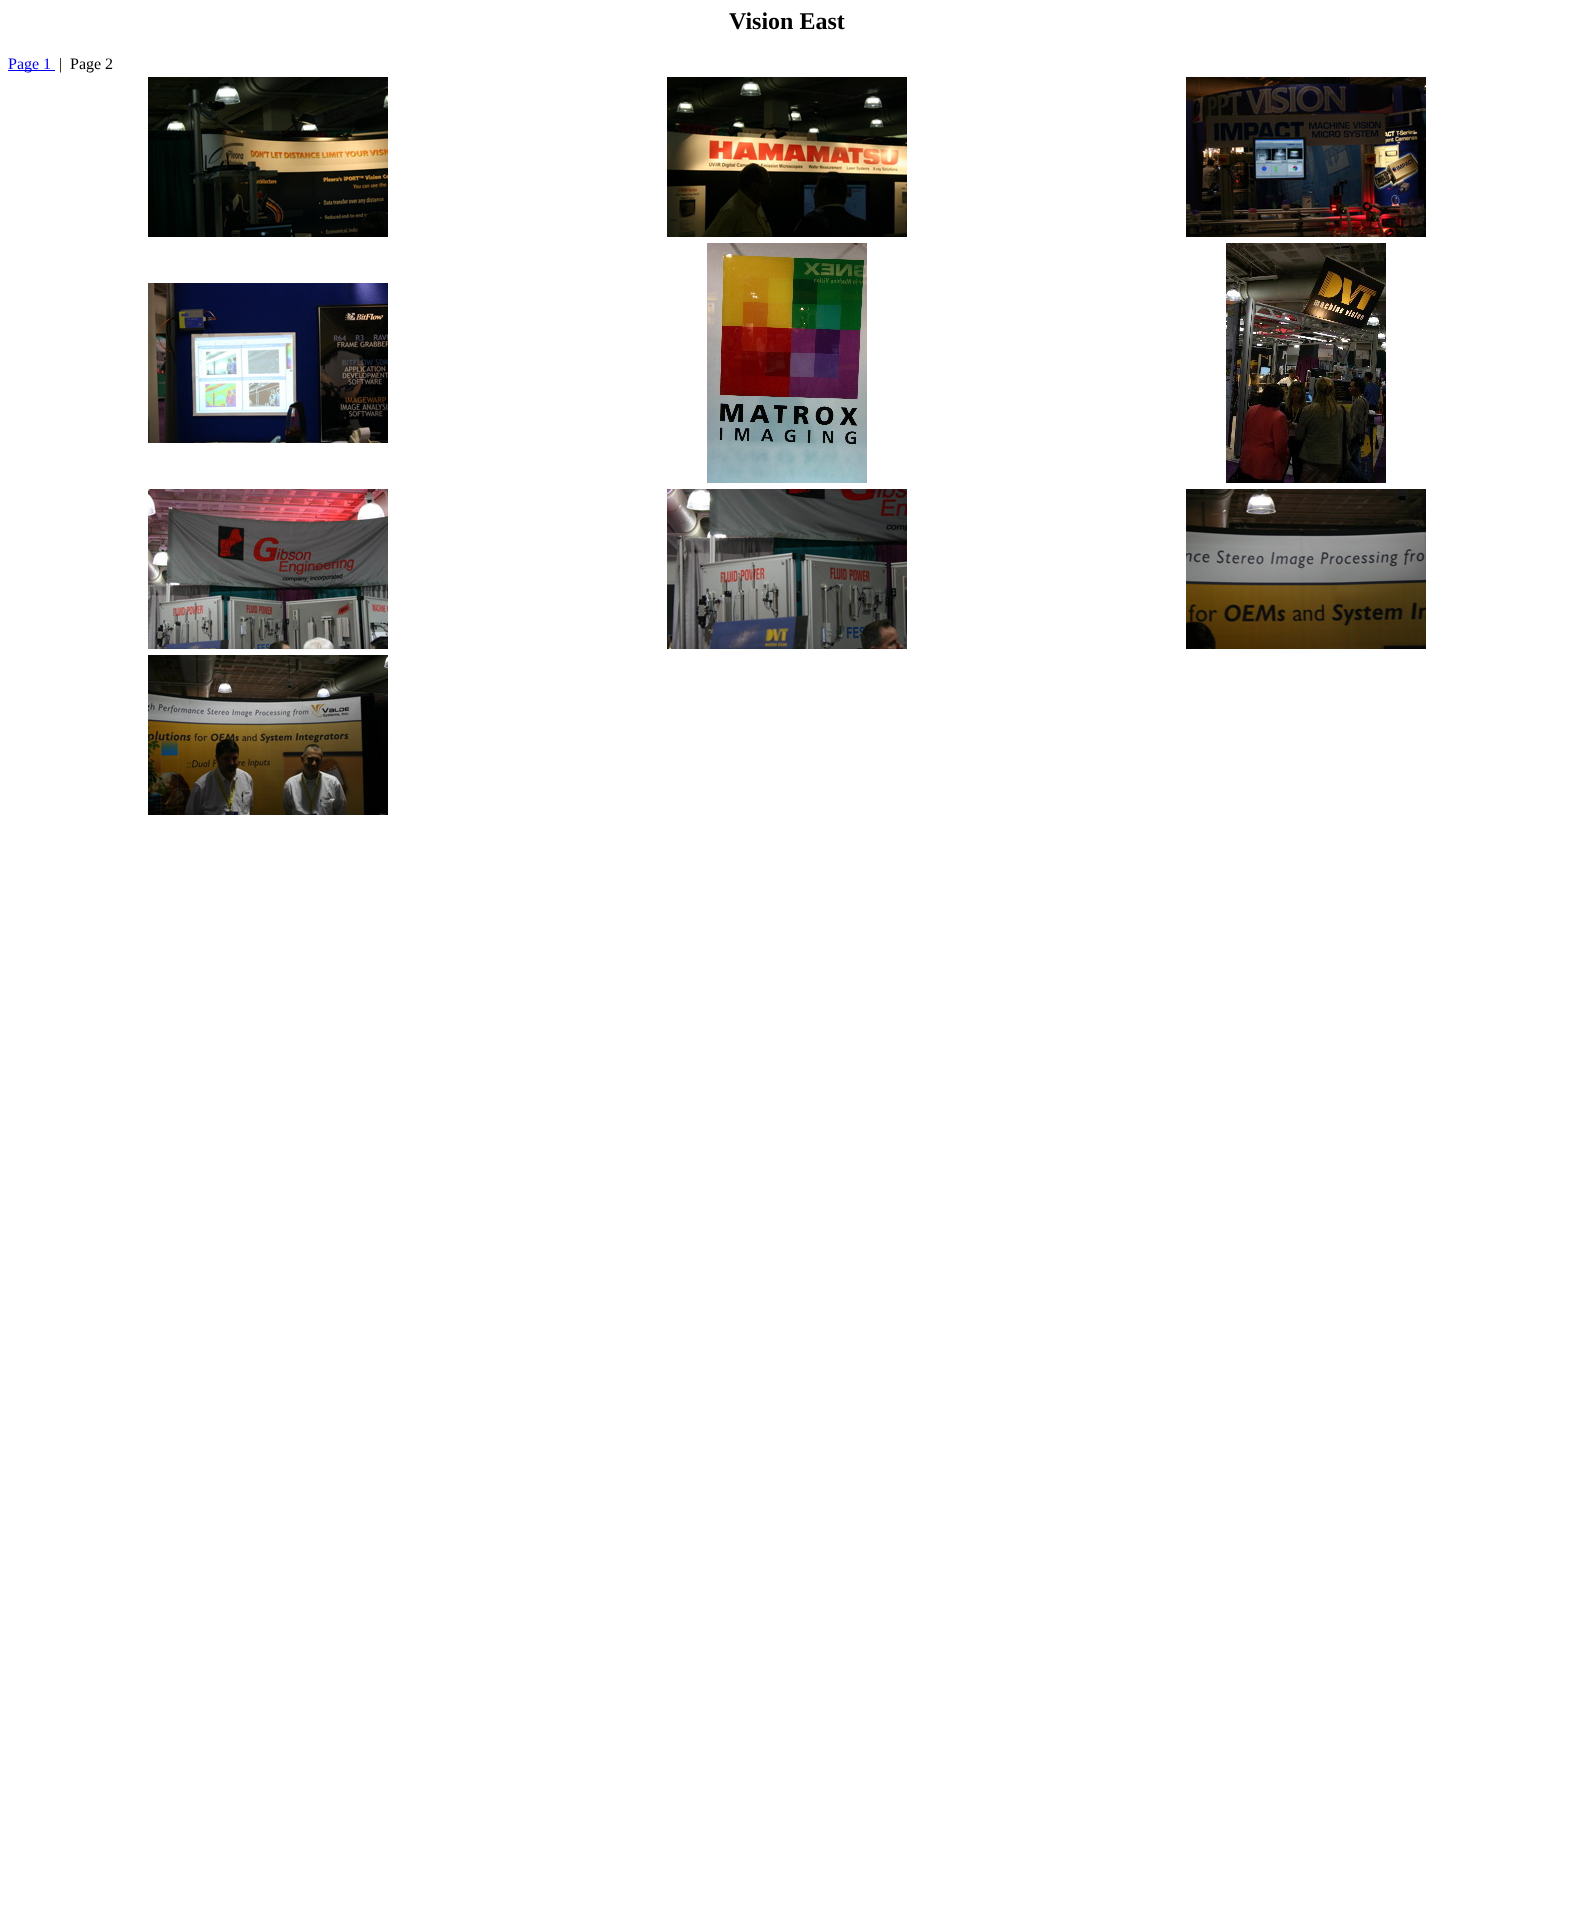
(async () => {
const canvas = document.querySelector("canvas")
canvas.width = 1574
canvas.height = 1918
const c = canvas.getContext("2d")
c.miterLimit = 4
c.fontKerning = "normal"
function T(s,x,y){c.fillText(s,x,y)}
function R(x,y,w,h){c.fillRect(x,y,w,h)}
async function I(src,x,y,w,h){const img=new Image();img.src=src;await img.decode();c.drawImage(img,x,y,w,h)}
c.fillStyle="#fff"
R(0,0,1574,1918)
c.font="bold 24px Liberation Serif"
c.fillStyle="#000"
T("Vision East",729,29)
c.fillStyle="#00e"
R(8,70,47,1)
c.font="16px Liberation Serif"
T("Page 1",8,69)
c.fillStyle="#000"
T("|",59,69)
T("Page 2",70,69)
await I("1.png",148,77,240,160)
await I("2.png",667,77,240,160)
await I("3.png",1186,77,240,160)
await I("4.png",148,283,240,160)
await I("5.png",707,243,160,240)
await I("6.png",1226,243,160,240)
await I("7.png",148,489,240,160)
await I("8.png",667,489,240,160)
await I("9.png",1186,489,240,160)
await I("10.png",148,655,240,160)
})()
